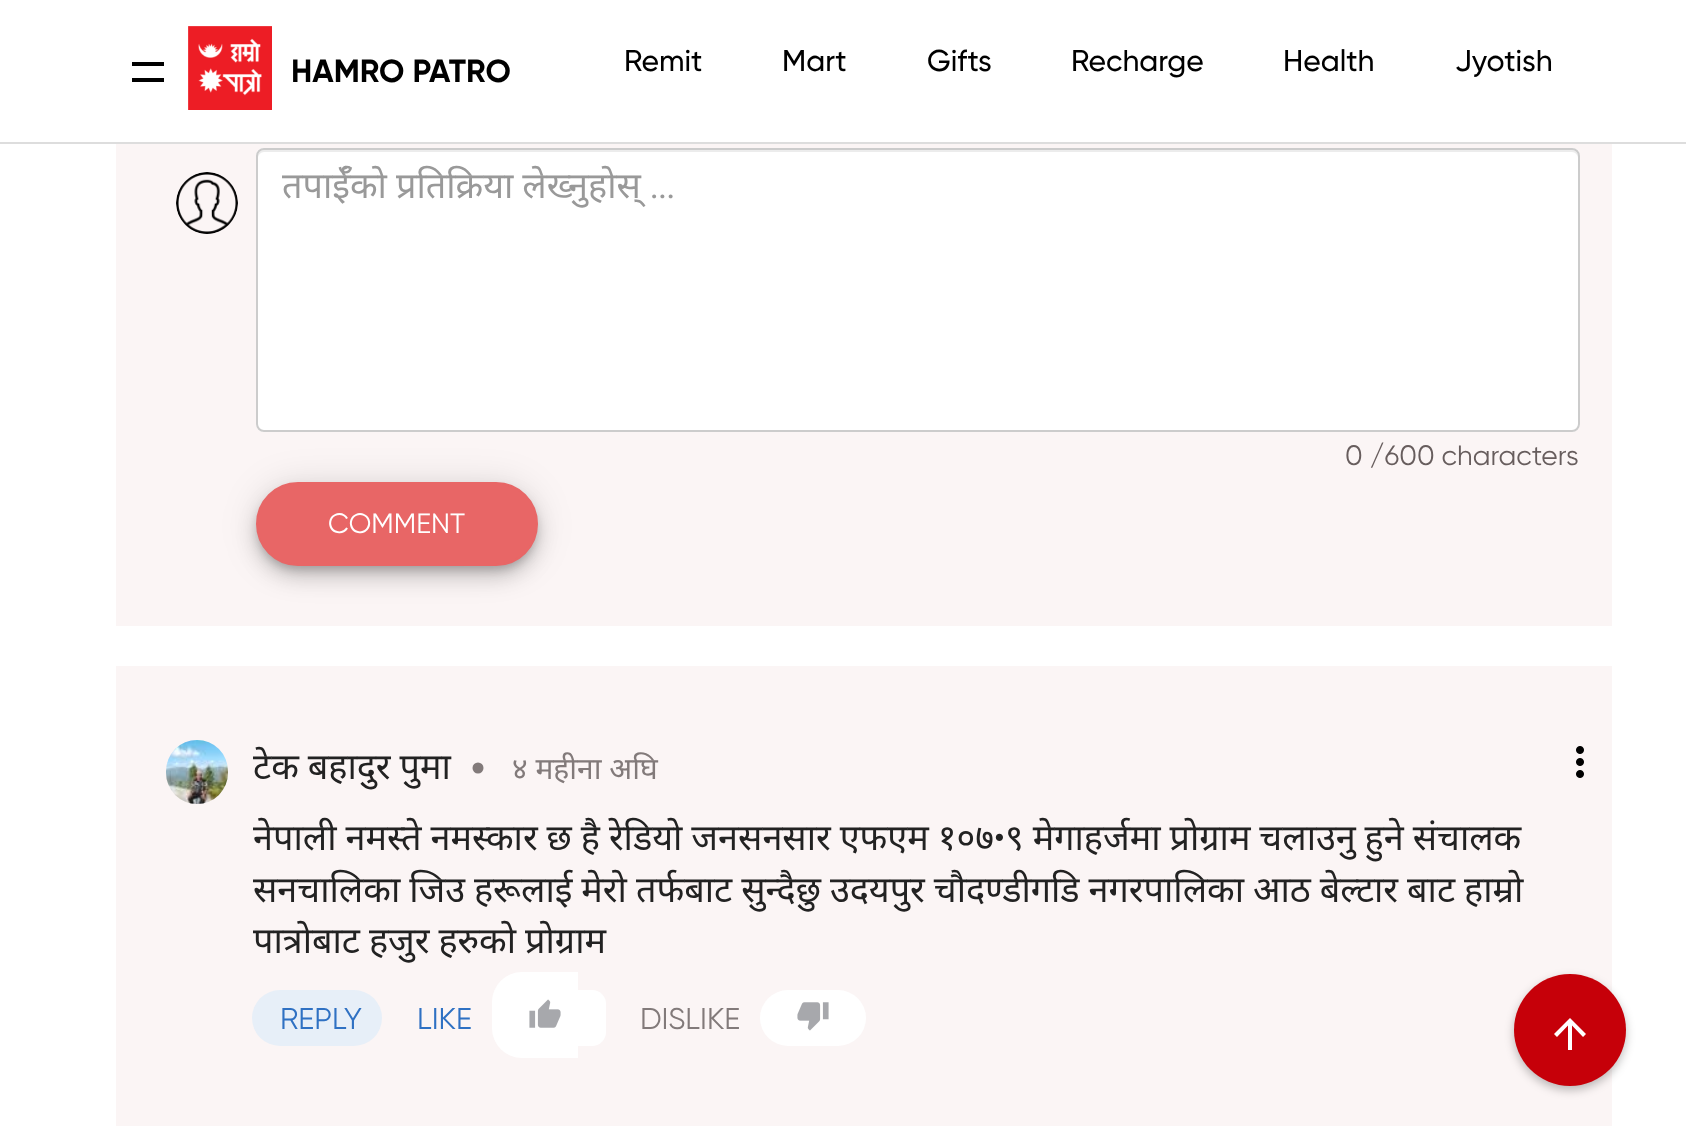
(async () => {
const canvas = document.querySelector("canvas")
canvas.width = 1686
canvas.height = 1126
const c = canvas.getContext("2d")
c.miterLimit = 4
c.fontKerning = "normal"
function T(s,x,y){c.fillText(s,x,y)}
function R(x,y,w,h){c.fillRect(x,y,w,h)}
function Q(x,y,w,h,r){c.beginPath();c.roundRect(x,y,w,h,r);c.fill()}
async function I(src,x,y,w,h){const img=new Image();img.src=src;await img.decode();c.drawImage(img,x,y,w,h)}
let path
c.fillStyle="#fff"
R(0,0,1686,1126)
c.fillStyle="#ddd"
R(0,142,1686,2)
c.fillStyle="#000"
R(132,62,32,4)
R(132,78,32,4)
await I("1.png",188,26,84,84)
c.font="bold 32px Gilroy"
T("HAMRO PATRO",291,82)
c.font="500 30px Gilroy"
T("Remit",624,71)
T("Mart",782,71)
T("Gifts",927,71)
T("Recharge",1071,71)
T("Health",1283,71)
T("Jyotish",1455,71)
c.fillStyle="#fbf5f5"
R(116,144,1496,482)
await I("2.png",176,172,62,62)
c.fillStyle="#0000001f"
c.filter="blur(18px)"
c.beginPath()
c.roundRect(256,484,282,84,42)
c.fill()
c.filter="none"
c.fillStyle="#fff"
Q(256,148,1324,284,8)
c.fillStyle="#ececec"
path = new Path2D("M264 152h1308c3 0 6 3 6 6v-2c0-3-3-6-6-6h-1308c-3 0-6 3-6 6v2c0-3 3-6 6-6z")
c.fill(path)
c.beginPath()
c.roundRect(257,149,1322,282,7)
c.strokeStyle="#ccc"
c.lineWidth=2
c.stroke()
c.wordSpacing="-0.4px"
c.font="36px Noto Sans"
c.fillStyle="#999"
T("तपाईँको प्रतिक्रिया लेख्नुहोस्",282,198)
c.wordSpacing="0px"
c.font="36px Gilroy"
T("...",650,198)
c.font="28px Gilroy"
c.fillStyle="#675d5d"
T("0 /600 characters",1345,465)
c.fillStyle="#00000024"
c.filter="blur(10px)"
c.beginPath()
c.roundRect(256,494,282,84,42)
c.fill()
c.filter="none"
c.fillStyle="#00000033"
c.filter="blur(5px)"
c.beginPath()
c.roundRect(258,490,278,80,40)
c.fill()
c.filter="none"
c.fillStyle="#e86666"
c.beginPath()
c.roundRect(257,483,280,82,41)
c.fill()
c.strokeStyle="#e86666"
c.stroke()
c.fillStyle="#fff"
T("COMMENT",328,533)
c.fillStyle="#fbf5f5"
R(116,666,1496,460)
await I("3.png",166,740,62,64)
c.wordSpacing="-0.4px"
c.font="36px Noto Sans"
c.fillStyle="#222"
T("टेक बहादुर पुमा",253,779)
c.fillStyle="#827a7a"
c.beginPath()
c.arc(478,768,5.5,0,7)
c.fill()
c.wordSpacing="0px"
c.font="30px Noto Sans"
T("४ महीना अघि",512,779)
await I("4.png",1576,746,8,32)
c.wordSpacing="-0.4px"
c.font="36px Noto Sans"
c.fillStyle="#222"
T("नेपाली नमस्ते नमस्कार छ है रेडियो जनसनसार एफएम १०७",253,850)
c.wordSpacing="0px"
c.font="36px Gilroy"
T("•",994,850)
c.wordSpacing="-0.4px"
c.font="36px Noto Sans"
T("९ मेगाहर्जमा प्रोग्राम चलाउनु हुने संचालक",1005,850)
T("सनचालिका जिउ हरूलाई मेरो तर्फबाट सुन्दैछु उदयपुर चौदण्डीगडि नगरपालिका आठ बेल्टार ‌बाट हाम्रो",253,902)
T("पात्रोबाट हजुर हरुको प्रोग्राम",253,953)
c.fillStyle="#fff"
c.beginPath()
c.roundRect(492,972,86,86,[30,0,0,30])
c.fill()
c.beginPath()
c.roundRect(578,990,28,56,[0,14,14,0])
c.fill()
Q(760,990,106,56,28)
c.fillStyle="#e7eff8"
Q(252,990,130,56,28)
c.wordSpacing="0px"
c.font="30px Gilroy"
c.fillStyle="#2f71c3"
T("REPLY",280,1029)
T("LIKE",417,1029)
await I("5.png",529,999,32,29)
c.fillStyle="#827a7a"
T("DISLIKE",640,1029)
await I("6.png",797,1002,32,29)
c.fillStyle="#00000042"
c.filter="blur(5px)"
c.beginPath()
c.roundRect(1514,978,112,112,56)
c.fill()
c.filter="none"
c.fillStyle="#c60009"
c.beginPath()
c.arc(1570,1030,56,0,7)
c.fill()
c.fillStyle="#fff"
path = new Path2D("M1554 1034l3 3l11-11.5v24.5h4v-24.5l11 11.5l3-3l-16-16z")
c.fill(path)
})()
